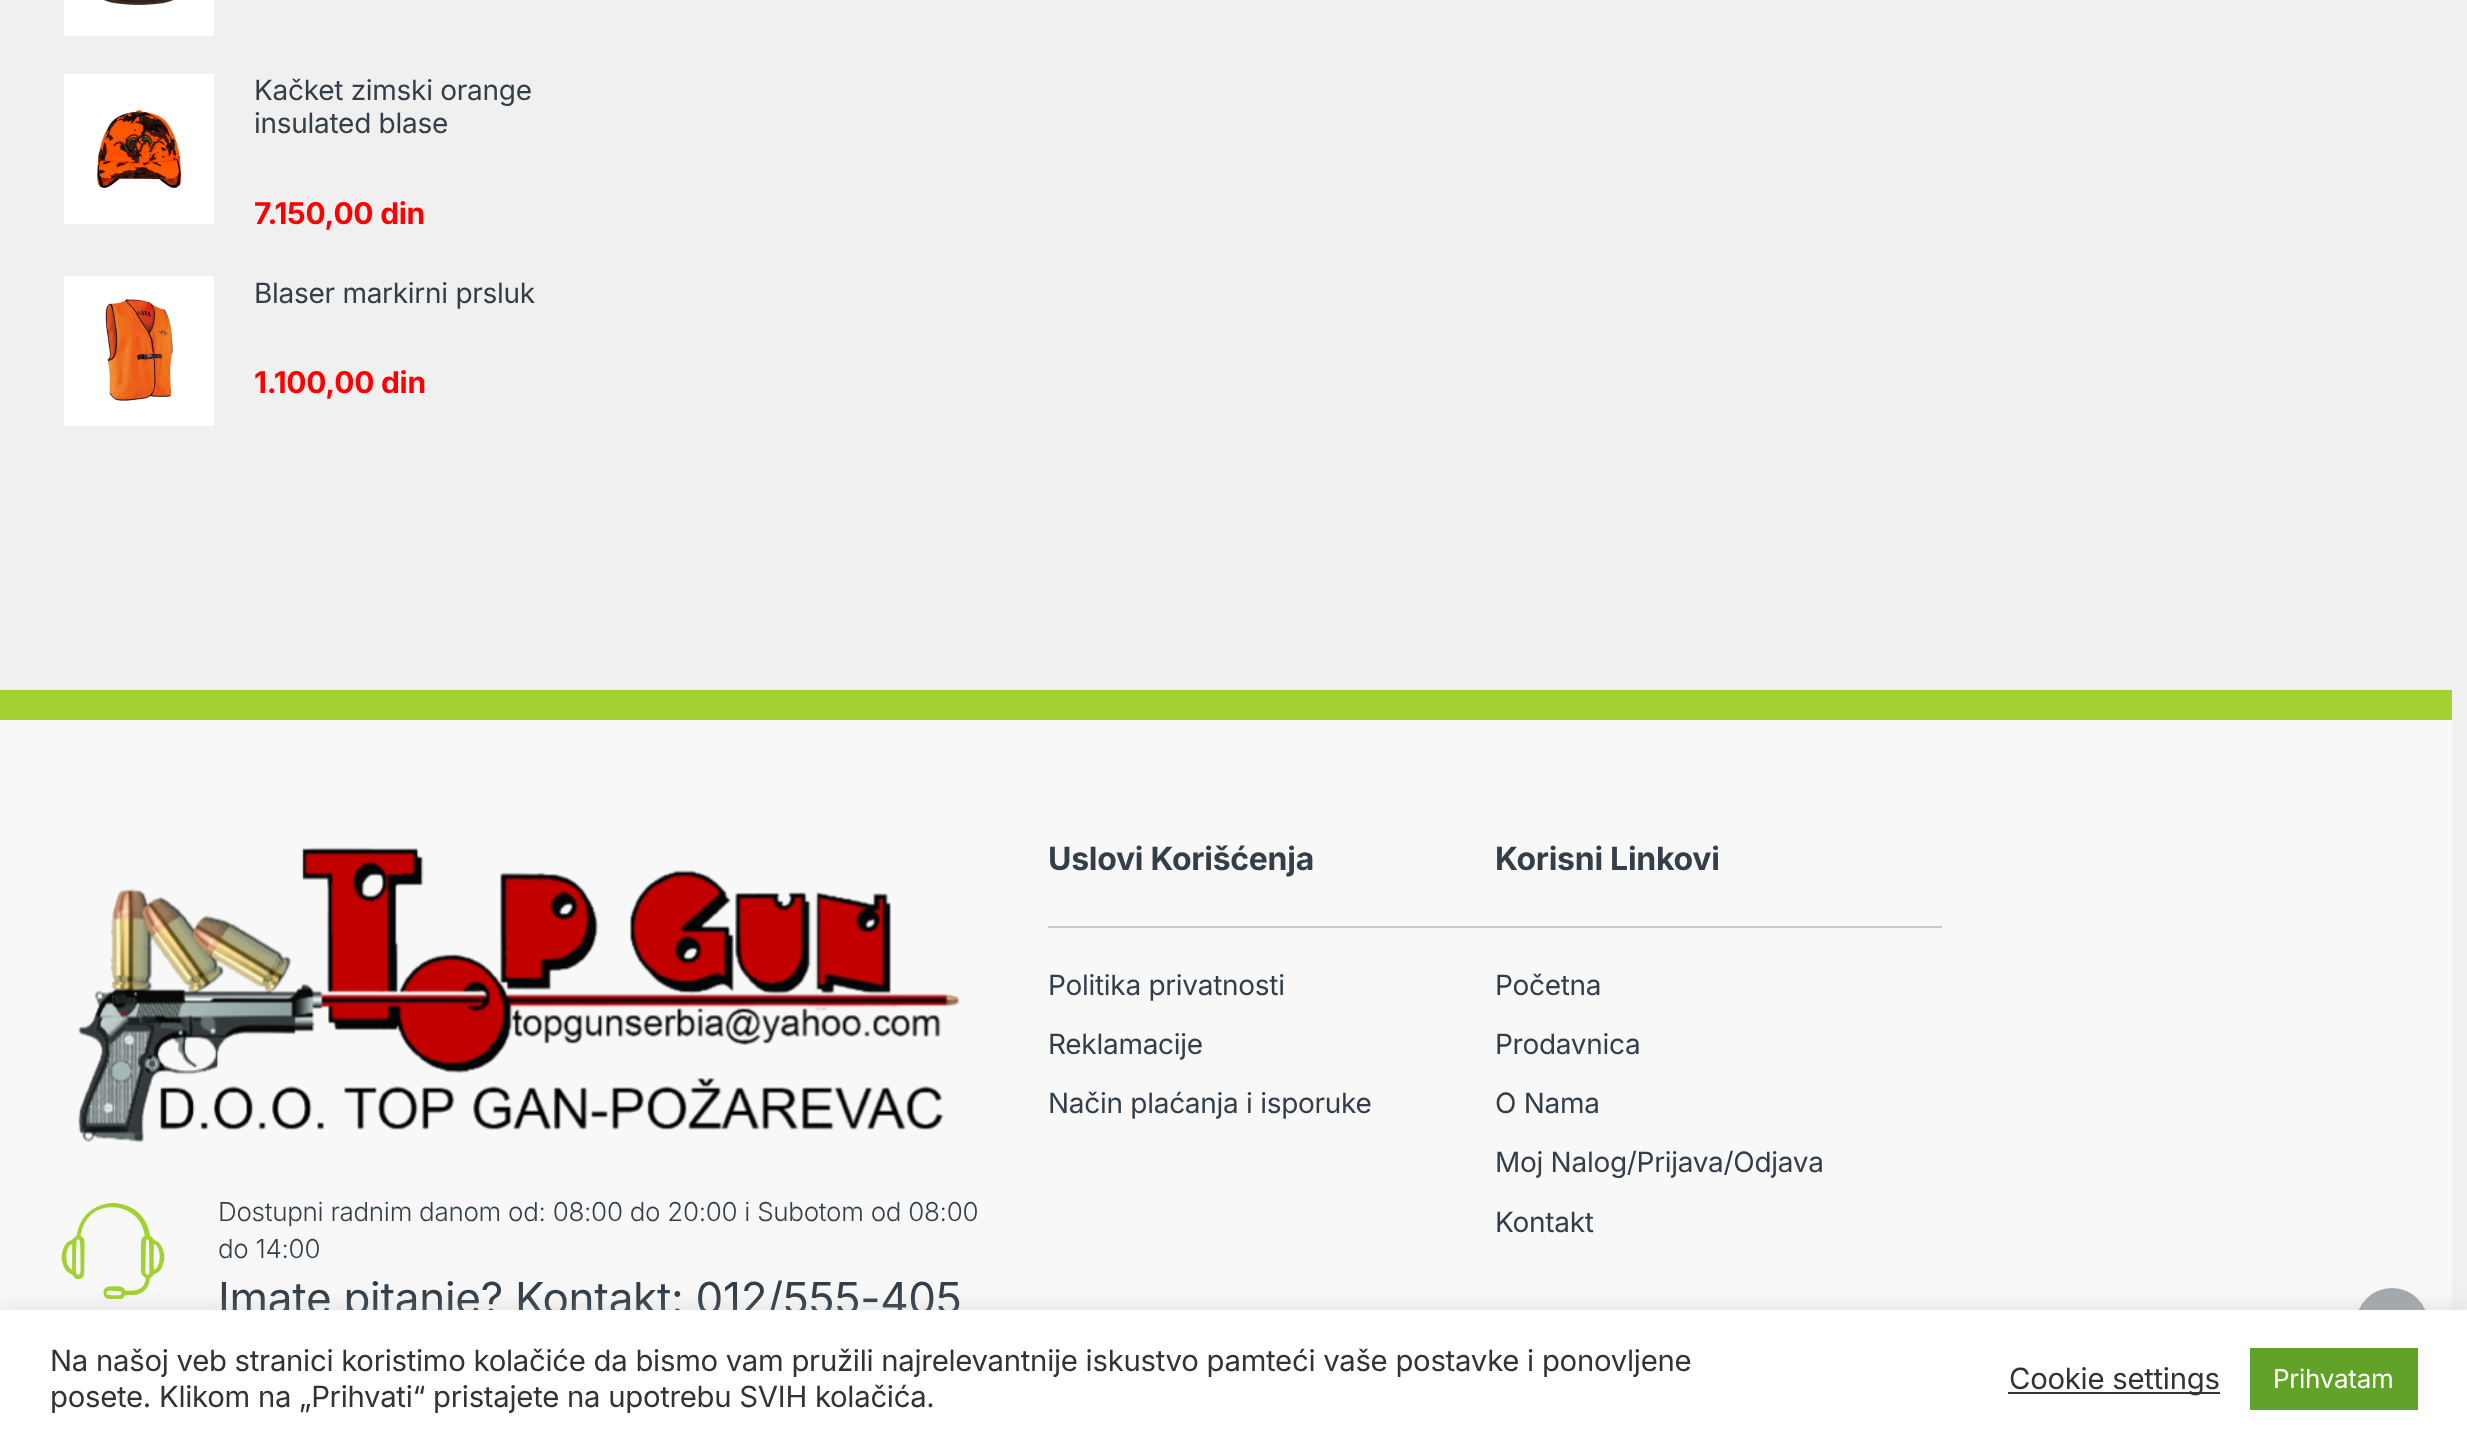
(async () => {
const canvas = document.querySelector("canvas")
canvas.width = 2467
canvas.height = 1448
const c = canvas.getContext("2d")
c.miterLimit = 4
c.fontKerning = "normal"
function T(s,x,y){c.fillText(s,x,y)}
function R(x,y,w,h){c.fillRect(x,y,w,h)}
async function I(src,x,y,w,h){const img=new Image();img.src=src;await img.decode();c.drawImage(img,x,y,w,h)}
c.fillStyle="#f0f0f0"
R(0,0,2467,1448)
await I("1.png",64,0,150,36)
await I("2.png",64,74,150,150)
c.letterSpacing="-0.28px"
c.font="28px Inter"
c.fillStyle="#333e48"
T("Kačket zimski orange",254,100)
T("insulated blase",254,133)
c.font="bold 30px Inter"
c.fillStyle="#f00"
T("7.150,00 din",254,224)
await I("3.png",64,276,150,150)
c.font="28px Inter"
c.fillStyle="#333e48"
T("Blaser markirni prsluk",254,303)
c.font="bold 30px Inter"
c.fillStyle="#f00"
T("1.100,00 din",254,393)
c.fillStyle="#a3d133"
R(0,690,2452,30)
c.fillStyle="#f8f8f8"
R(0,720,2452,590)
c.font="bold 32px Inter"
c.fillStyle="#333e48"
T("Uslovi Korišćenja",1048,870)
c.fillStyle="#c7cacc"
R(1048,926,894,2)
c.font="28px Inter"
c.fillStyle="#333e48"
T("Politika privatnosti",1048,995)
T("Reklamacije",1048,1054)
T("Način plaćanja i isporuke",1048,1113)
c.font="bold 32px Inter"
T("Korisni Linkovi",1495,870)
c.font="28px Inter"
T("Početna",1495,995)
T("Prodavnica",1495,1054)
T("O Nama",1495,1113)
T("Moj Nalog/Prijava/Odjava",1495,1172)
T("Kontakt",1495,1232)
await I("4.png",78,847,882,296)
await I("5.png",61,1203,104,97)
c.font="300 26px Inter"
T("Dostupni radnim danom od: 08:00 do 20:00 i Subotom od 08:00",218,1221)
T("do 14:00",218,1258)
c.font="44px Inter"
T("Imate pitanje? Kontakt: 012/555-405",218,1314)
c.fillStyle="#a4a9ae"
c.beginPath()
c.arc(2392,1324,35,0,7)
c.fill()
c.strokeStyle="#a4a9ae"
c.lineWidth=2
c.stroke()
c.fillStyle="#acabab4d"
c.filter="blur(10px)"
c.beginPath()
c.rect(0,1308,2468,138)
c.fill()
c.filter="none"
c.fillStyle="#fff"
R(0,1310,2467,138)
c.font="29.33px Inter"
c.fillStyle="#333"
T("Na našoj veb stranici koristimo kolačiće da bismo vam pružili najrelevantnije iskustvo pamteći vaše postavke i ponovljene",50,1371)
T("posete. Klikom na „Prihvati“ pristajete na upotrebu SVIH kolačića.",50,1407)
R(2008,1392,212,2)
T("Cookie settings",2009,1389)
c.fillStyle="#61a229"
R(2250,1348,168,62)
c.font="26px Inter"
c.fillStyle="#fff"
T("Prihvatam",2273,1388)
})()
